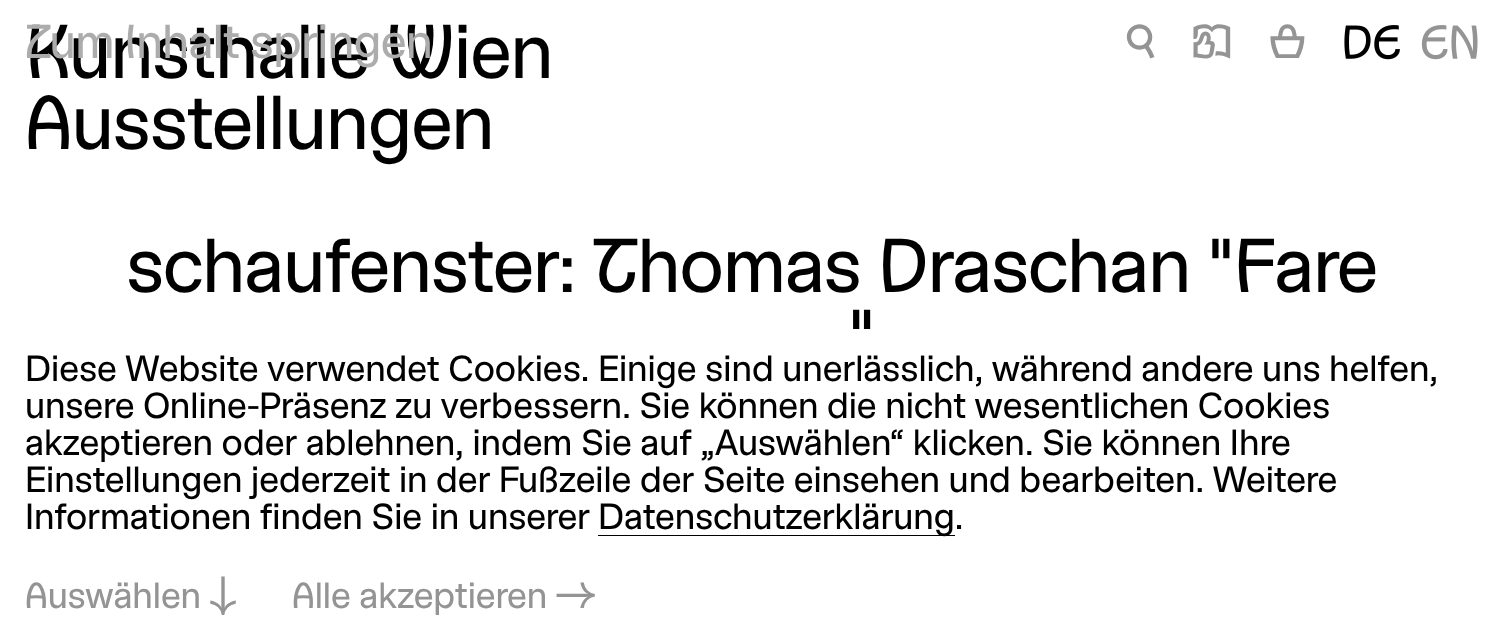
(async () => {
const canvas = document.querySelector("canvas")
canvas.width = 1505
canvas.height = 642
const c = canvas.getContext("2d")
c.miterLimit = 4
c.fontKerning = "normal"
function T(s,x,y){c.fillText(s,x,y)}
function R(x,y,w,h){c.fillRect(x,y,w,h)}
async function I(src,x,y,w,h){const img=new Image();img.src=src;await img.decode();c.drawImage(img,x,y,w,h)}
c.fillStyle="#fff"
R(0,0,1505,642)
c.letterSpacing="-0.8px"
c.font="bold 77.8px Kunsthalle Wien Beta"
c.fillStyle="#000"
T("Kunsthalle Wien",25,78)
c.letterSpacing="-0.5px"
c.font="bold 48.5px Kunsthalle Wien Beta"
c.fillStyle="#acacac"
T("Zum Inhalt springen",25,58)
c.fillStyle="#949494"
T("🔍",1125,58)
T("📖",1190,58)
T("🗑",1268,58)
await I("1.png",1344,25,56,35)
await I("2.png",1421,25,57,35)
c.letterSpacing="-0.8px"
c.font="bold 77.8px Kunsthalle Wien Beta"
c.fillStyle="#000"
T("Ausstellungen",25,149)
T("schaufenster: Thomas Draschan \"Fare",126,292)
T("\"",848,363)
c.fillStyle="#fff"
R(852,329,18,1)
c.letterSpacing="0px"
c.font="37.15px Kunsthalle Wien Beta"
c.fillStyle="#000"
T("Diese Website verwendet Cookies. Einige sind unerlässlich, während andere uns helfen,",25,381)
T("unsere Online-Präsenz zu verbessern. Sie können die nicht wesentlichen Cookies",25,418)
T("akzeptieren oder ablehnen, indem Sie auf „Auswählen“ klicken. Sie können Ihre",25,455)
T("Einstellungen jederzeit in der Fußzeile der Seite einsehen und bearbeiten. Weitere",25,492)
T("Informationen finden Sie in unserer",25,529)
R(598,535,357,1)
T("Datenschutzerklärung.",598,529)
c.font="bold 37.15px Kunsthalle Wien Beta"
c.fillStyle="#949494"
T("Auswählen",25,608)
T("↓",210,608)
T("Alle akzeptieren",292,608)
T("→",556,608)
})()
